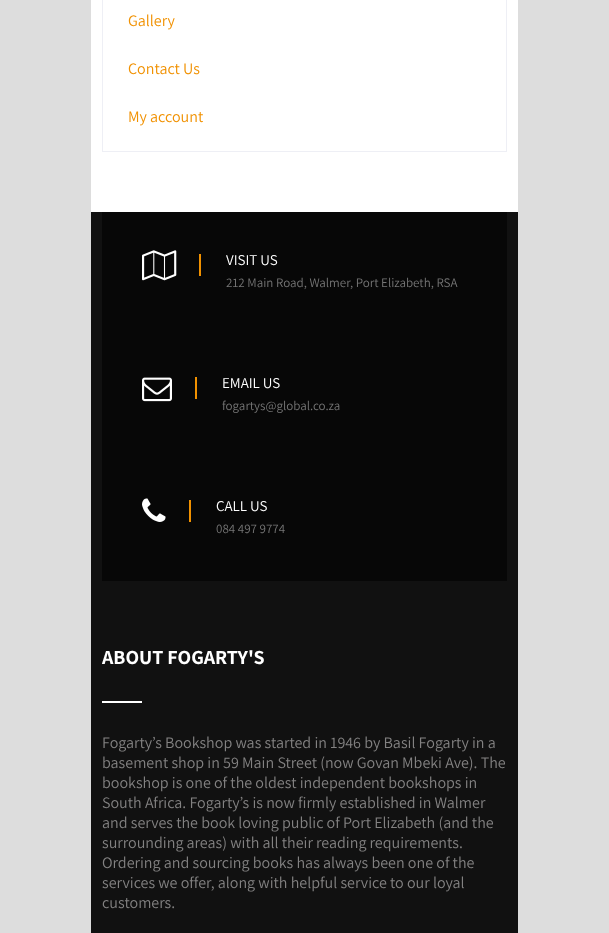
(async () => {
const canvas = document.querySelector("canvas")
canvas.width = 609
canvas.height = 933
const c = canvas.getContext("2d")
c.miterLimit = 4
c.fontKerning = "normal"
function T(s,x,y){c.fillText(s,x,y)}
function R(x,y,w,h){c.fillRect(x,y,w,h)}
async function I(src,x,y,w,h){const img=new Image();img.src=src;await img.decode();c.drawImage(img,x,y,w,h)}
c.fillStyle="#ddd"
R(0,0,609,933)
c.fillStyle="#fff"
R(91,0,427,212)
c.strokeStyle="#eeeff5"
c.strokeRect(102.5,-.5,404,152)
c.font="16px Assistant"
c.fillStyle="#f19100"
T("Gallery",128,26)
T("Contact Us",128,74)
T("My account",128,122)
c.fillStyle="#111"
R(91,212,427,721)
c.fillStyle="#070707"
R(102,212,405,369)
await I("1.png",142,250,35,31)
c.fillStyle="#f19100"
R(199,254,2,22)
c.font="15px Assistant"
c.fillStyle="#fff"
T("VISIT US",226,265)
c.font="13px Assistant"
c.fillStyle="#757575"
T("212 Main Road, Walmer, Port Elizabeth, RSA",226,287)
await I("2.png",142,377,30,25)
c.fillStyle="#f19100"
R(195,377,2,22)
c.font="15px Assistant"
c.fillStyle="#fff"
T("EMAIL US",222,388)
c.font="13px Assistant"
c.fillStyle="#757575"
T("fogartys@global.co.za",222,410)
await I("3.png",142,498,24,24)
c.fillStyle="#f19100"
R(189,500,2,22)
c.font="15px Assistant"
c.fillStyle="#fff"
T("CALL US",216,511)
c.font="13px Assistant"
c.fillStyle="#757575"
T("084 497 9774",216,533)
c.font="bold 20px Assistant"
c.fillStyle="#fff"
T("ABOUT FOGARTY'S",102,664)
R(102,701,40,2)
c.font="16px Assistant"
c.fillStyle="#838282"
T("Fogarty’s Bookshop was started in 1946 by Basil Fogarty in a",102,748)
T("basement shop in 59 Main Street (now Govan Mbeki Ave). The",102,768)
T("bookshop is one of the oldest independent bookshops in",102,788)
T("South Africa. Fogarty’s is now firmly established in Walmer",102,808)
T("and serves the book loving public of Port Elizabeth (and the",102,828)
T("surrounding areas) with all their reading requirements.",102,848)
T("Ordering and sourcing books has always been one of the",102,868)
T("services we offer, along with helpful service to our loyal",102,888)
T("customers.",102,908)
})()
